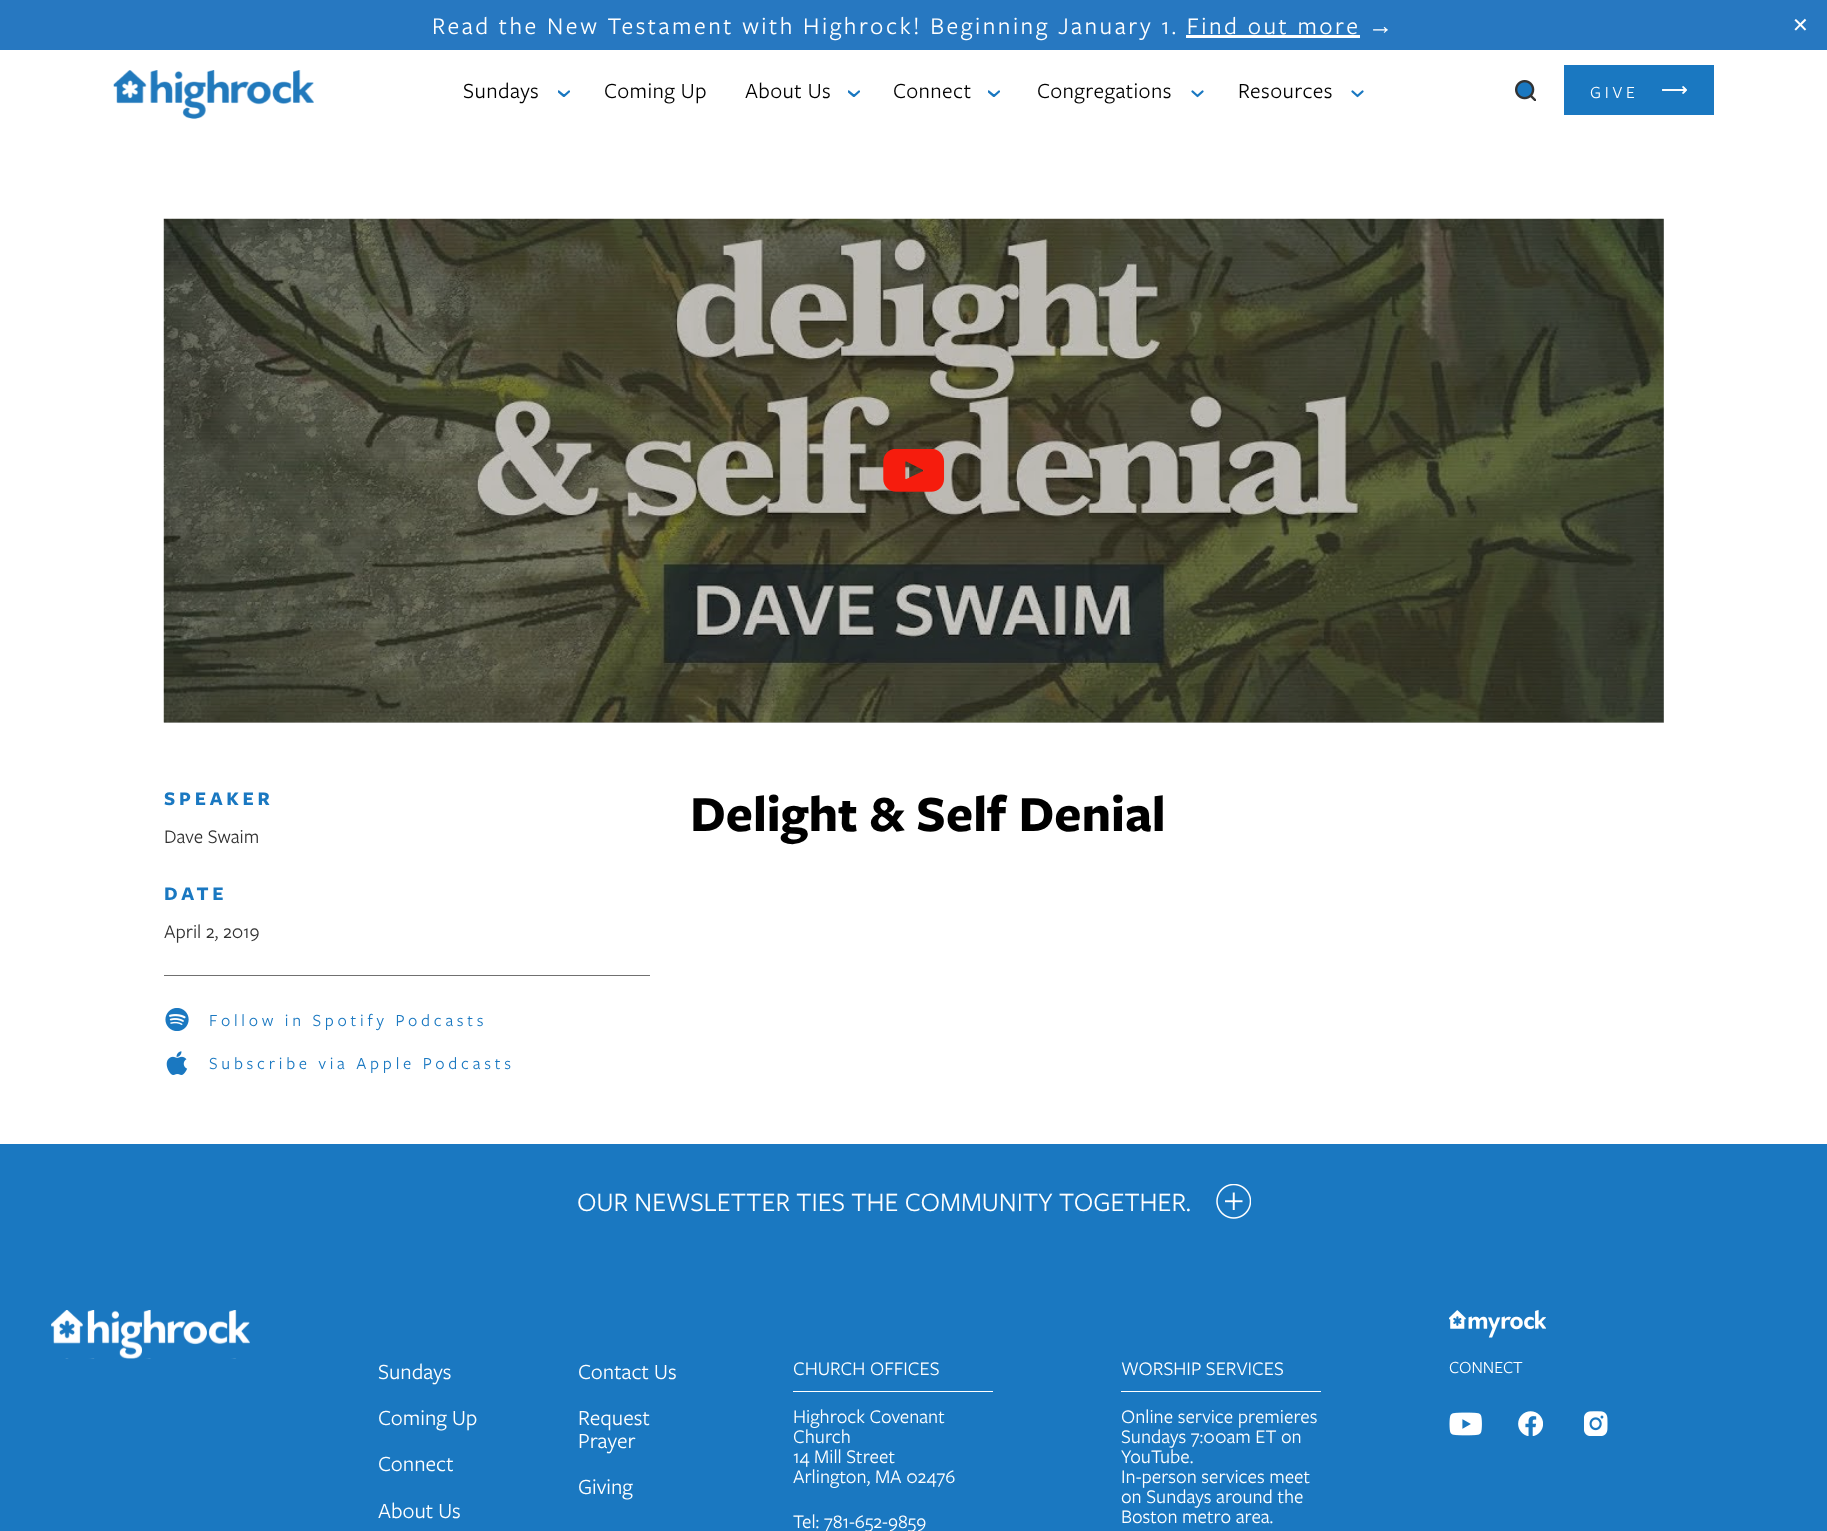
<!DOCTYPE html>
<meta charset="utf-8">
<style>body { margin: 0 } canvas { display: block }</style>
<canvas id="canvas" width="1827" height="1531"></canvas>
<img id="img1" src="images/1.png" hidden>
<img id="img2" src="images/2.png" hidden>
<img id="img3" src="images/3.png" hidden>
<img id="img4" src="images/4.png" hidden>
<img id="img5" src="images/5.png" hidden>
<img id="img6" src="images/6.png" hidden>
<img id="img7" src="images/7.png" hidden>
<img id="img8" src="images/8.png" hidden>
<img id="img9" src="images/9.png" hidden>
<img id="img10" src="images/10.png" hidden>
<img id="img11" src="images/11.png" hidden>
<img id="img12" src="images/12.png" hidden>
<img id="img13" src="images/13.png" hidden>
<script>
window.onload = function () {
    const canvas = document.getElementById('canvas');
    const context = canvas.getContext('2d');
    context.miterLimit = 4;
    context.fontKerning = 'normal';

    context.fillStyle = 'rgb(255, 255, 255)';
    context.fillRect(0, 0, 1827, 1531);
    context.fillStyle = 'rgb(204, 204, 204)';
    context.fillRect(164, 219, 1500, 504);
    context.fillStyle = 'rgb(39, 120, 193)';
    context.fillRect(0, 0, 1827, 50);
    context.fillStyle = 'rgb(255, 255, 255)';
    context.fillRect(1186, 35, 174, 3);
    context.drawImage(document.getElementById('img1'), 113, 70, 201, 49);
    context.save();
    context.beginPath();
    context.rect(558, 90, 12, 7);
    context.clip();
    context.beginPath();
    context.moveTo(558.5, 91.5);
    context.lineTo(564, 96);
    context.lineTo(569, 91.5);
    context.strokeStyle = 'rgb(26, 120, 193)';
    context.lineWidth = 2.3;
    context.lineCap = 'round';
    context.lineJoin = 'round';
    context.stroke();
    context.restore();
    context.save();
    context.beginPath();
    context.rect(848, 90, 12, 7);
    context.clip();
    context.beginPath();
    context.moveTo(848.5, 91.5);
    context.lineTo(854, 96);
    context.lineTo(859, 91.5);
    context.strokeStyle = 'rgb(26, 120, 193)';
    context.lineWidth = 2.3;
    context.lineCap = 'round';
    context.lineJoin = 'round';
    context.stroke();
    context.restore();
    context.save();
    context.beginPath();
    context.rect(988, 90, 12, 7);
    context.clip();
    context.beginPath();
    context.moveTo(988.5, 91.5);
    context.lineTo(994, 96);
    context.lineTo(999, 91.5);
    context.strokeStyle = 'rgb(26, 120, 193)';
    context.lineWidth = 2.3;
    context.lineCap = 'round';
    context.lineJoin = 'round';
    context.stroke();
    context.restore();
    context.beginPath();
    context.moveTo(1192.5, 91.5);
    context.lineTo(1197.5, 96);
    context.lineTo(1202.5, 91.5);
    context.strokeStyle = 'rgb(26, 120, 193)';
    context.lineWidth = 2.3;
    context.lineCap = 'round';
    context.lineJoin = 'round';
    context.stroke();
    context.beginPath();
    context.moveTo(1352.5, 91.5);
    context.lineTo(1357.5, 96);
    context.lineTo(1362.5, 91.5);
    context.stroke();
    context.drawImage(document.getElementById('img2'), 1515, 80, 21, 21);
    context.fillStyle = 'rgb(26, 120, 193)';
    context.fillRect(1564, 65, 150, 50);
    context.drawImage(document.getElementById('img3'), 1662, 86, 25, 8);
    context.drawImage(document.getElementById('img4'), 163, 218, 1501, 505);
    context.drawImage(document.getElementById('img5'), 883, 449, 62, 43);
    context.fillStyle = 'rgb(112, 112, 112)';
    context.fillRect(164, 975, 486, 1);
    context.drawImage(document.getElementById('img6'), 165, 1008, 24, 23);
    context.drawImage(document.getElementById('img7'), 166, 1051, 22, 24);
    context.fillStyle = 'rgb(26, 120, 193)';
    context.fillRect(0, 1144, 1827, 387);
    context.drawImage(document.getElementById('img8'), 1216, 1184, 35, 35);
    context.drawImage(document.getElementById('img9'), 51, 1310, 199, 49);
    context.fillStyle = 'rgb(255, 255, 255)';
    context.fillRect(793, 1391, 200, 1);
    context.fillRect(1121, 1391, 200, 1);
    context.drawImage(document.getElementById('img10'), 1449, 1310, 97, 28);
    context.drawImage(document.getElementById('img11'), 1449, 1412, 33, 24);
    context.drawImage(document.getElementById('img12'), 1518, 1411, 25, 25);
    context.drawImage(document.getElementById('img13'), 1584, 1411, 24, 25);
    context.letterSpacing = '2.5px';
    context.font = '25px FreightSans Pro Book';
    context.fillText('Read the New Testament with Highrock! Beginning January 1. Find out more', 432, 34);
    context.font = '25px Liberation Sans';
    context.fillText('→', 1368, 34);
    context.letterSpacing = '0px';
    context.font = '20px DejaVu Sans';
    context.fillText('✕', 1792, 32);
    context.letterSpacing = '0.4px';
    context.font = '22.5px FreightSans Pro Book';
    context.fillStyle = 'rgb(0, 0, 0)';
    context.fillText('Sundays', 463, 98);
    context.fillText('Coming Up', 604, 98);
    context.fillText('About Us', 745, 98);
    context.fillText('Connect', 893, 98);
    context.fillText('Congregations', 1037, 98);
    context.fillText('Resources', 1238, 98);
    context.letterSpacing = '3.75px';
    context.font = '17.5px FreightSans Pro Book';
    context.fillStyle = 'rgb(255, 255, 255)';
    context.fillText('GIVE', 1590, 98);
    context.font = 'bold 20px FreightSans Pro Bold';
    context.fillStyle = 'rgb(26, 120, 193)';
    context.fillText('SPEAKER', 164, 805);
    context.letterSpacing = '0px';
    context.font = '20px FreightSans Pro Book';
    context.fillStyle = 'rgb(51, 51, 51)';
    context.fillText('Dave Swaim', 164, 843);
    context.letterSpacing = '3.75px';
    context.font = 'bold 20px FreightSans Pro Bold';
    context.fillStyle = 'rgb(26, 120, 193)';
    context.fillText('DATE', 164, 900);
    context.letterSpacing = '0px';
    context.font = '20px FreightSans Pro Book';
    context.fillStyle = 'rgb(51, 51, 51)';
    context.fillText('April 2, 2019', 164, 938);
    context.letterSpacing = '3.75px';
    context.font = '17.5px FreightSans Pro Book';
    context.fillStyle = 'rgb(26, 120, 193)';
    context.fillText('Follow in Spotify Podcasts', 209, 1026);
    context.fillText('Subscribe via Apple Podcasts', 209, 1069);
    context.letterSpacing = '0px';
    context.font = 'bold 52.5px FreightSans Pro Bold';
    context.fillStyle = 'rgb(0, 0, 0)';
    context.fillText('Delight & Self Denial', 690, 831);
    context.font = '27.5px FreightSans Pro Book';
    context.fillStyle = 'rgb(255, 255, 255)';
    context.fillText('OUR NEWSLETTER TIES THE COMMUNITY TOGETHER.', 577, 1211);
    context.font = '22.5px FreightSans Pro Book';
    context.fillText('Sundays', 378, 1379);
    context.fillText('Coming Up', 378, 1425);
    context.fillText('Connect', 378, 1471);
    context.fillText('About Us', 378, 1518);
    context.fillText('Contact Us', 578, 1379);
    context.fillText('Request', 578, 1425);
    context.fillText('Prayer', 578, 1448);
    context.fillText('Giving', 578, 1494);
    context.font = '20px FreightSans Pro Book';
    context.fillText('CHURCH OFFICES', 793, 1375);
    context.fillText('Highrock Covenant', 793, 1423);
    context.fillText('Church', 793, 1443);
    context.fillText('14 Mill Street', 793, 1463);
    context.fillText('Arlington, MA 02476', 793, 1483);
    context.fillText('Tel: 781-652-9859', 793, 1528);
    context.fillText('WORSHIP SERVICES', 1121, 1375);
    context.fillText('Online service premieres', 1121, 1423);
    context.fillText('Sundays 7:00am ET on', 1121, 1443);
    context.fillText('YouTube.', 1121, 1463);
    context.fillText('In-person services meet', 1121, 1483);
    context.fillText('on Sundays around the', 1121, 1503);
    context.fillText('Boston metro area.', 1121, 1523);
    context.font = '17.5px FreightSans Pro Book';
    context.fillText('CONNECT', 1449, 1373);
};
</script>
